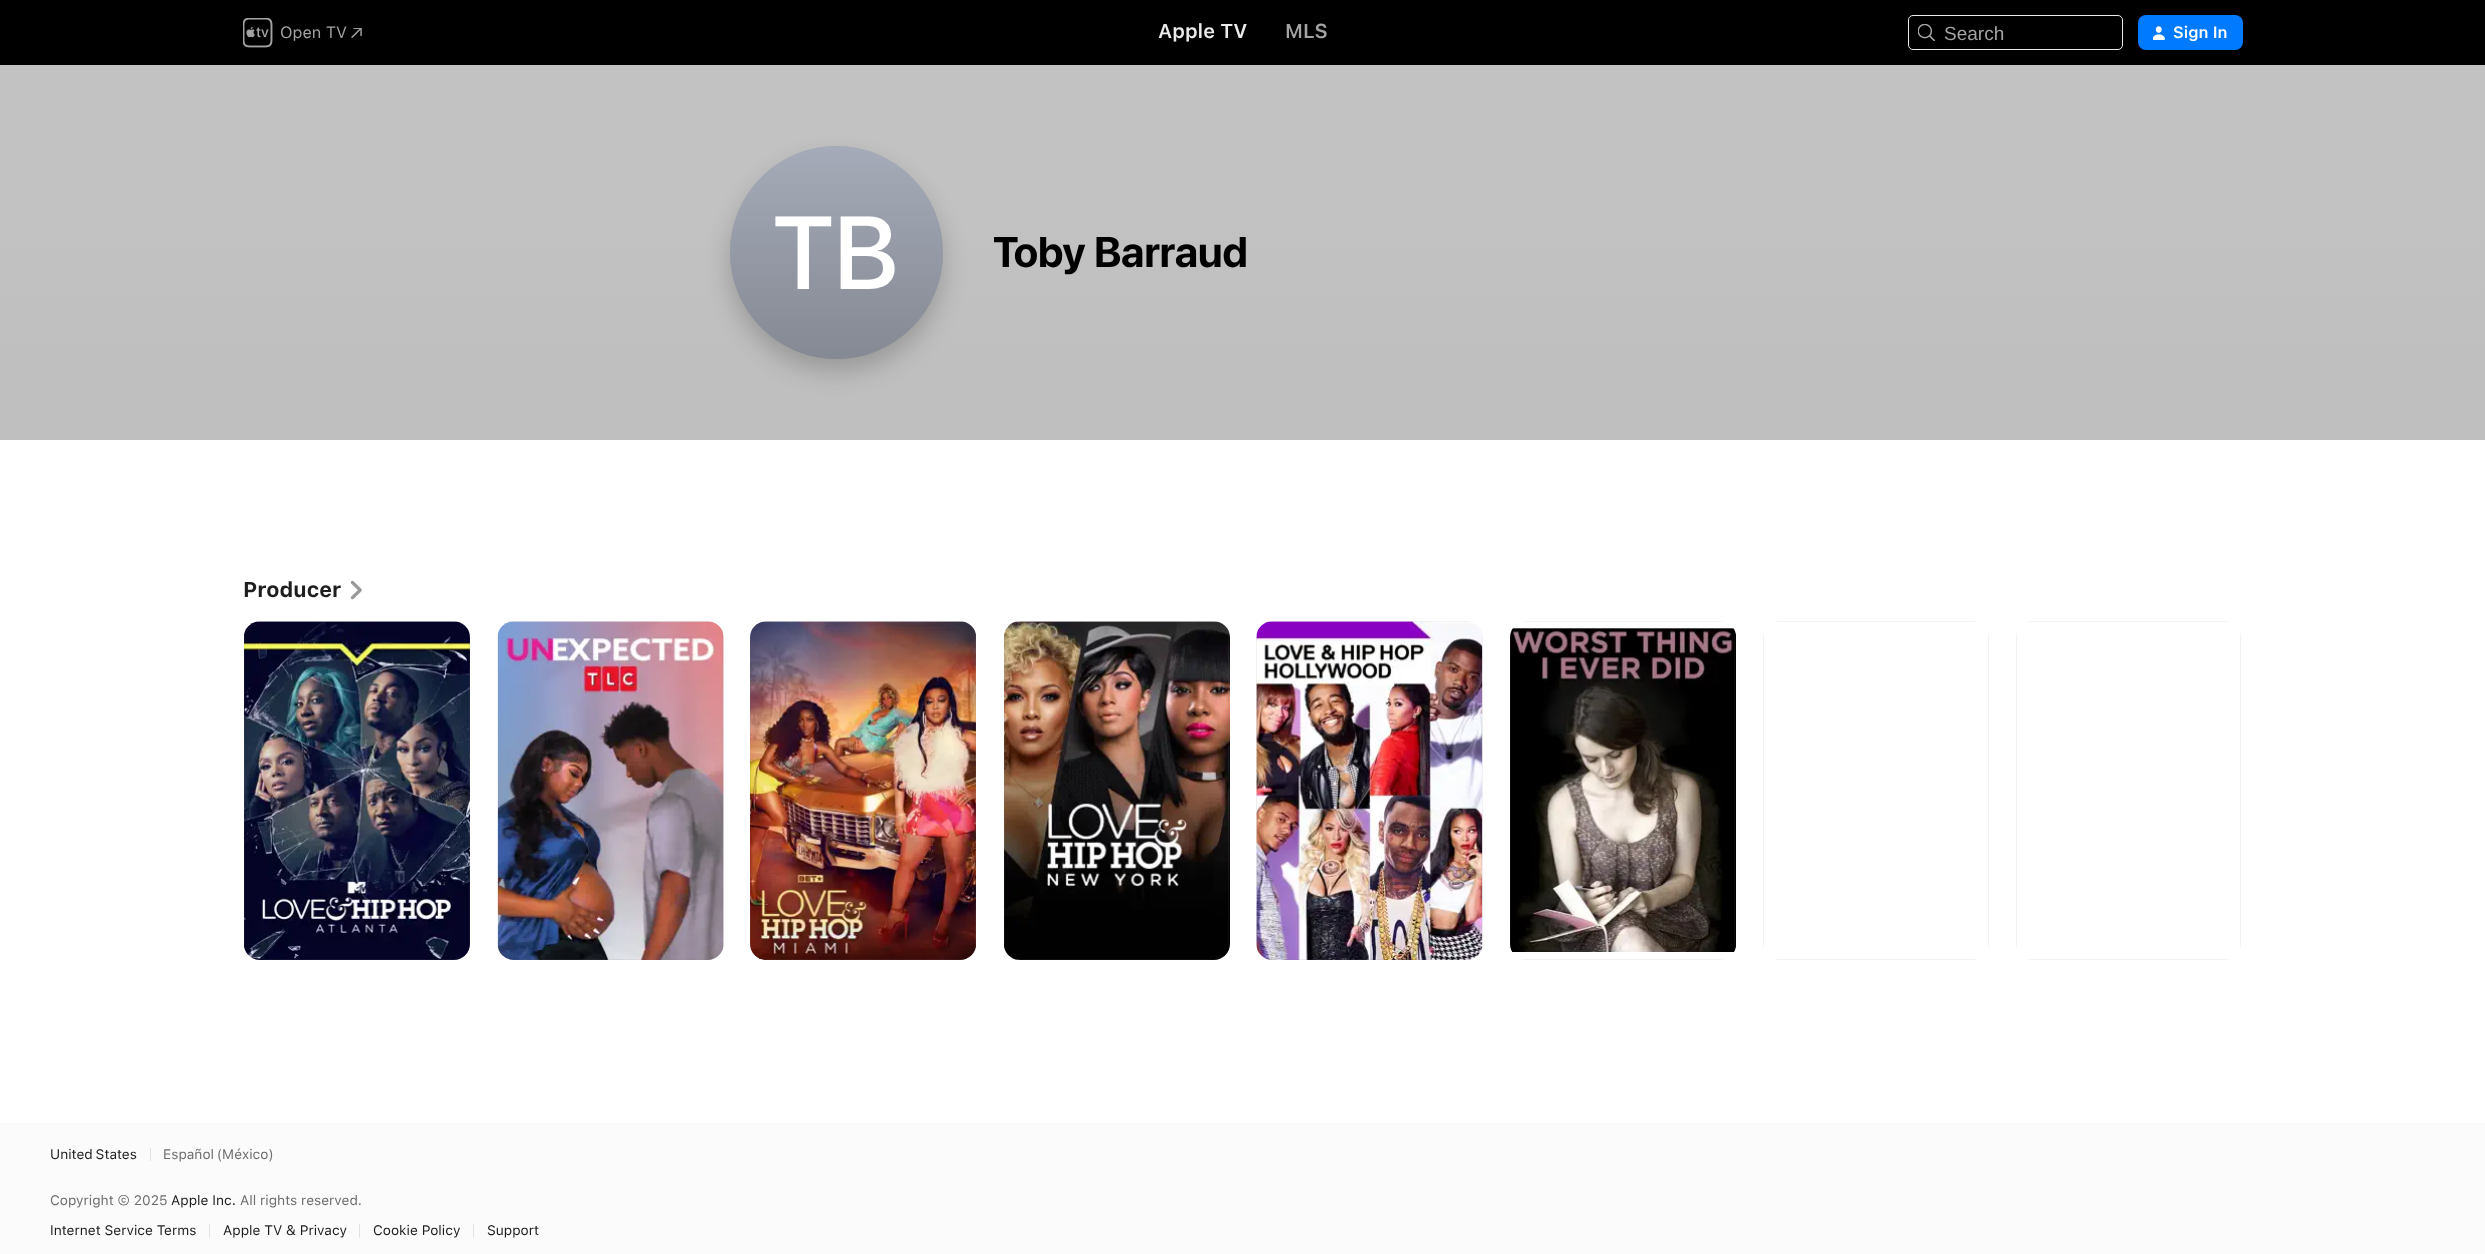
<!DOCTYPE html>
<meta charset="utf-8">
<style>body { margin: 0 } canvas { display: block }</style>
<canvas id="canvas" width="2485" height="1254"></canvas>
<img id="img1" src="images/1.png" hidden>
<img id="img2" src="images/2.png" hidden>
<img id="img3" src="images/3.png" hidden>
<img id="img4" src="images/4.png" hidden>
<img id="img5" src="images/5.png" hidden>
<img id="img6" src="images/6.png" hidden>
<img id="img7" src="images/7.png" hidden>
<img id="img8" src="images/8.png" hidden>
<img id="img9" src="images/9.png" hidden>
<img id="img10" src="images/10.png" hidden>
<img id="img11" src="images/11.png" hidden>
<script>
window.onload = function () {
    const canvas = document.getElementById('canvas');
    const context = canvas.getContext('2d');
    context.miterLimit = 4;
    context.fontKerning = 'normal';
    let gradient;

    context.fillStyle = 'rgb(255, 255, 255)';
    context.fillRect(0, 0, 2485, 1254);
    context.fillStyle = 'rgb(0, 0, 0)';
    context.fillRect(0, 0, 2485, 65);
    context.drawImage(document.getElementById('img1'), 243, 18, 30, 30);
    context.drawImage(document.getElementById('img2'), 351, 28, 11, 10);
    context.beginPath();
    context.roundRect(1908.5, 15.5, 214, 34, 4.5);
    context.strokeStyle = 'rgb(235, 235, 235)';
    context.stroke();
    context.drawImage(document.getElementById('img3'), 1918, 24, 17, 17);
    context.fillStyle = 'rgb(0, 122, 255)';
    context.beginPath();
    context.roundRect(2138, 15, 105, 35, 8);
    context.fill();
    context.drawImage(document.getElementById('img4'), 2153, 26, 12, 14);
    context.fillStyle = 'rgb(194, 194, 194)';
    context.fillRect(0, 65, 2485, 138);
    gradient = context.createLinearGradient(1243, 202, 1243, 440);
    gradient.addColorStop(0, 'rgb(194, 194, 194)');
    gradient.addColorStop(0.7, 'rgb(191, 191, 191)');
    context.fillStyle = gradient;
    context.fillRect(0, 203, 2485, 237);
    context.fillStyle = 'rgba(0, 0, 0, 0.2)';
    context.filter = 'blur(12.5px)';
    context.beginPath();
    context.roundRect(730, 159, 213, 212, 106);
    context.fill();
    context.filter = 'none';
    context.beginPath();
    context.arc(836.5, 252.5, 106, 0, 2 * Math.PI);
    context.strokeStyle = 'rgba(0, 0, 0, 0.08)';
    context.stroke();
    gradient = context.createLinearGradient(836, 146, 836, 359);
    gradient.addColorStop(0, 'rgb(165, 171, 184)');
    gradient.addColorStop(1, 'rgb(132, 137, 147)');
    context.fillStyle = gradient;
    context.beginPath();
    context.arc(836.5, 252.5, 106.5, 0, 2 * Math.PI);
    context.fill();
    context.drawImage(document.getElementById('img5'), 350, 580, 12, 20);
    context.drawImage(document.getElementById('img6'), 244, 621, 226, 339);
    context.fillStyle = 'rgba(128, 128, 128, 0.1)';
    context.beginPath();
    context.moveTo(244, 637);
    context.lineTo(244, 944);
    context.lineTo(245, 950);
    context.lineTo(245, 631);
    context.closePath();
    context.moveTo(260, 621);
    context.lineTo(254, 622);
    context.lineTo(460, 622);
    context.lineTo(454, 621);
    context.closePath();
    context.moveTo(470, 637);
    context.lineTo(469, 631);
    context.lineTo(469, 950);
    context.lineTo(470, 944);
    context.closePath();
    context.moveTo(454, 960);
    context.lineTo(460, 959);
    context.lineTo(254, 959);
    context.lineTo(260, 960);
    context.closePath();
    context.fill('evenodd');
    context.drawImage(document.getElementById('img7'), 497, 621, 227, 339);
    context.beginPath();
    context.moveTo(498, 637);
    context.lineTo(498, 944);
    context.lineTo(499, 950);
    context.lineTo(499, 631);
    context.closePath();
    context.moveTo(514, 621);
    context.lineTo(508, 622);
    context.lineTo(713, 622);
    context.lineTo(707, 621);
    context.closePath();
    context.moveTo(723, 637);
    context.lineTo(722, 631);
    context.lineTo(722, 950);
    context.lineTo(723, 944);
    context.closePath();
    context.moveTo(707, 960);
    context.lineTo(713, 959);
    context.lineTo(508, 959);
    context.lineTo(514, 960);
    context.closePath();
    context.fill('evenodd');
    context.drawImage(document.getElementById('img8'), 750, 621, 226, 339);
    context.beginPath();
    context.moveTo(750, 637);
    context.lineTo(750, 944);
    context.lineTo(751, 950);
    context.lineTo(751, 631);
    context.closePath();
    context.moveTo(766, 621);
    context.lineTo(760, 622);
    context.lineTo(966, 622);
    context.lineTo(960, 621);
    context.closePath();
    context.moveTo(976, 637);
    context.lineTo(975, 631);
    context.lineTo(975, 950);
    context.lineTo(976, 944);
    context.closePath();
    context.moveTo(960, 960);
    context.lineTo(966, 959);
    context.lineTo(760, 959);
    context.lineTo(766, 960);
    context.closePath();
    context.fill('evenodd');
    context.drawImage(document.getElementById('img9'), 1004, 621, 226, 339);
    context.beginPath();
    context.moveTo(1004, 637);
    context.lineTo(1004, 944);
    context.lineTo(1005, 950);
    context.lineTo(1005, 631);
    context.closePath();
    context.moveTo(1020, 621);
    context.lineTo(1014, 622);
    context.lineTo(1219, 622);
    context.lineTo(1213, 621);
    context.closePath();
    context.moveTo(1229, 637);
    context.lineTo(1228, 631);
    context.lineTo(1228, 950);
    context.lineTo(1229, 944);
    context.closePath();
    context.moveTo(1213, 960);
    context.lineTo(1219, 959);
    context.lineTo(1014, 959);
    context.lineTo(1020, 960);
    context.closePath();
    context.fill('evenodd');
    context.drawImage(document.getElementById('img10'), 1256, 621, 227, 339);
    context.beginPath();
    context.moveTo(1256, 637);
    context.lineTo(1256, 944);
    context.lineTo(1257, 950);
    context.lineTo(1257, 631);
    context.closePath();
    context.moveTo(1272, 621);
    context.lineTo(1266, 622);
    context.lineTo(1473, 622);
    context.lineTo(1467, 621);
    context.closePath();
    context.moveTo(1483, 637);
    context.lineTo(1482, 631);
    context.lineTo(1482, 950);
    context.lineTo(1483, 944);
    context.closePath();
    context.moveTo(1467, 960);
    context.lineTo(1473, 959);
    context.lineTo(1266, 959);
    context.lineTo(1272, 960);
    context.closePath();
    context.fill('evenodd');
    context.drawImage(document.getElementById('img11'), 1510, 628, 226, 324);
    context.beginPath();
    context.moveTo(1510, 637);
    context.lineTo(1510, 944);
    context.lineTo(1511, 950);
    context.lineTo(1511, 631);
    context.closePath();
    context.moveTo(1526, 621);
    context.lineTo(1520, 622);
    context.lineTo(1725, 622);
    context.lineTo(1719, 621);
    context.closePath();
    context.moveTo(1735, 637);
    context.lineTo(1734, 631);
    context.lineTo(1734, 950);
    context.lineTo(1735, 944);
    context.closePath();
    context.moveTo(1719, 960);
    context.lineTo(1725, 959);
    context.lineTo(1520, 959);
    context.lineTo(1526, 960);
    context.closePath();
    context.fill('evenodd');
    context.fillStyle = 'rgb(242, 242, 242)';
    context.beginPath();
    context.moveTo(1763, 637);
    context.lineTo(1763, 944);
    context.lineTo(1764, 950);
    context.lineTo(1764, 631);
    context.closePath();
    context.moveTo(1779, 621);
    context.lineTo(1773, 622);
    context.lineTo(1979, 622);
    context.lineTo(1973, 621);
    context.closePath();
    context.moveTo(1989, 637);
    context.lineTo(1988, 631);
    context.lineTo(1988, 950);
    context.lineTo(1989, 944);
    context.closePath();
    context.moveTo(1973, 960);
    context.lineTo(1979, 959);
    context.lineTo(1773, 959);
    context.lineTo(1779, 960);
    context.closePath();
    context.fill('evenodd');
    context.beginPath();
    context.moveTo(2016, 637);
    context.lineTo(2016, 944);
    context.lineTo(2017, 950);
    context.lineTo(2017, 631);
    context.closePath();
    context.moveTo(2032, 621);
    context.lineTo(2026, 622);
    context.lineTo(2231, 622);
    context.lineTo(2225, 621);
    context.closePath();
    context.moveTo(2241, 637);
    context.lineTo(2240, 631);
    context.lineTo(2240, 950);
    context.lineTo(2241, 944);
    context.closePath();
    context.moveTo(2225, 960);
    context.lineTo(2231, 959);
    context.lineTo(2026, 959);
    context.lineTo(2032, 960);
    context.closePath();
    context.fill('evenodd');
    context.fillStyle = 'rgb(251, 251, 251)';
    context.fillRect(0, 1123, 2485, 131);
    context.fillStyle = 'rgb(226, 226, 226)';
    context.fillRect(150, 1148, 1, 13);
    context.fillRect(209, 1224, 1, 14);
    context.fillRect(359, 1224, 1, 14);
    context.fillRect(473, 1224, 1, 14);
    context.font = '16.25px SF';
    context.fillStyle = 'rgb(163, 163, 163)';
    context.fillText('Open TV', 280, 38);
    context.font = '600 20px SF';
    context.fillStyle = 'rgb(235, 235, 235)';
    context.fillText('Apple TV', 1158, 38);
    context.fillStyle = 'rgb(163, 163, 163)';
    context.fillText('MLS', 1285, 38);
    context.font = '19px Liberation Sans';
    context.fillText('Search', 1944, 40);
    context.font = '600 16.25px SF';
    context.fillStyle = 'rgb(255, 255, 255)';
    context.fillText('Sign In', 2173, 38);
    context.letterSpacing = '0.5px';
    context.font = '500 103px SF';
    context.fillText('T‌B', 773, 289);
    context.letterSpacing = '0px';
    context.font = 'bold 42.5px "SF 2"';
    context.fillStyle = 'rgb(0, 0, 0)';
    context.fillText('Toby Barraud', 993, 267);
    context.font = 'bold 21.25px SF';
    context.fillStyle = 'rgb(30, 30, 30)';
    context.fillText('Producer', 243, 597);
    context.wordSpacing = '-1px';
    context.font = '13.75px SF';
    context.fillText('United States', 50, 1159);
    context.fillStyle = 'rgb(110, 110, 110)';
    context.fillText('Español (México)', 163, 1159);
    context.wordSpacing = '0px';
    context.fillText('Copyright © 2025', 50, 1205);
    context.fillStyle = 'rgb(30, 30, 30)';
    context.fillText('Apple Inc.', 171, 1205);
    context.fillStyle = 'rgb(110, 110, 110)';
    context.fillText('All rights reserved.', 240, 1205);
    context.fillStyle = 'rgb(30, 30, 30)';
    context.fillText('Internet Service Terms', 50, 1235);
    context.fillText('Apple TV & Privacy', 223, 1235);
    context.fillText('Cookie Policy', 373, 1235);
    context.fillText('Support', 487, 1235);
};
</script>
